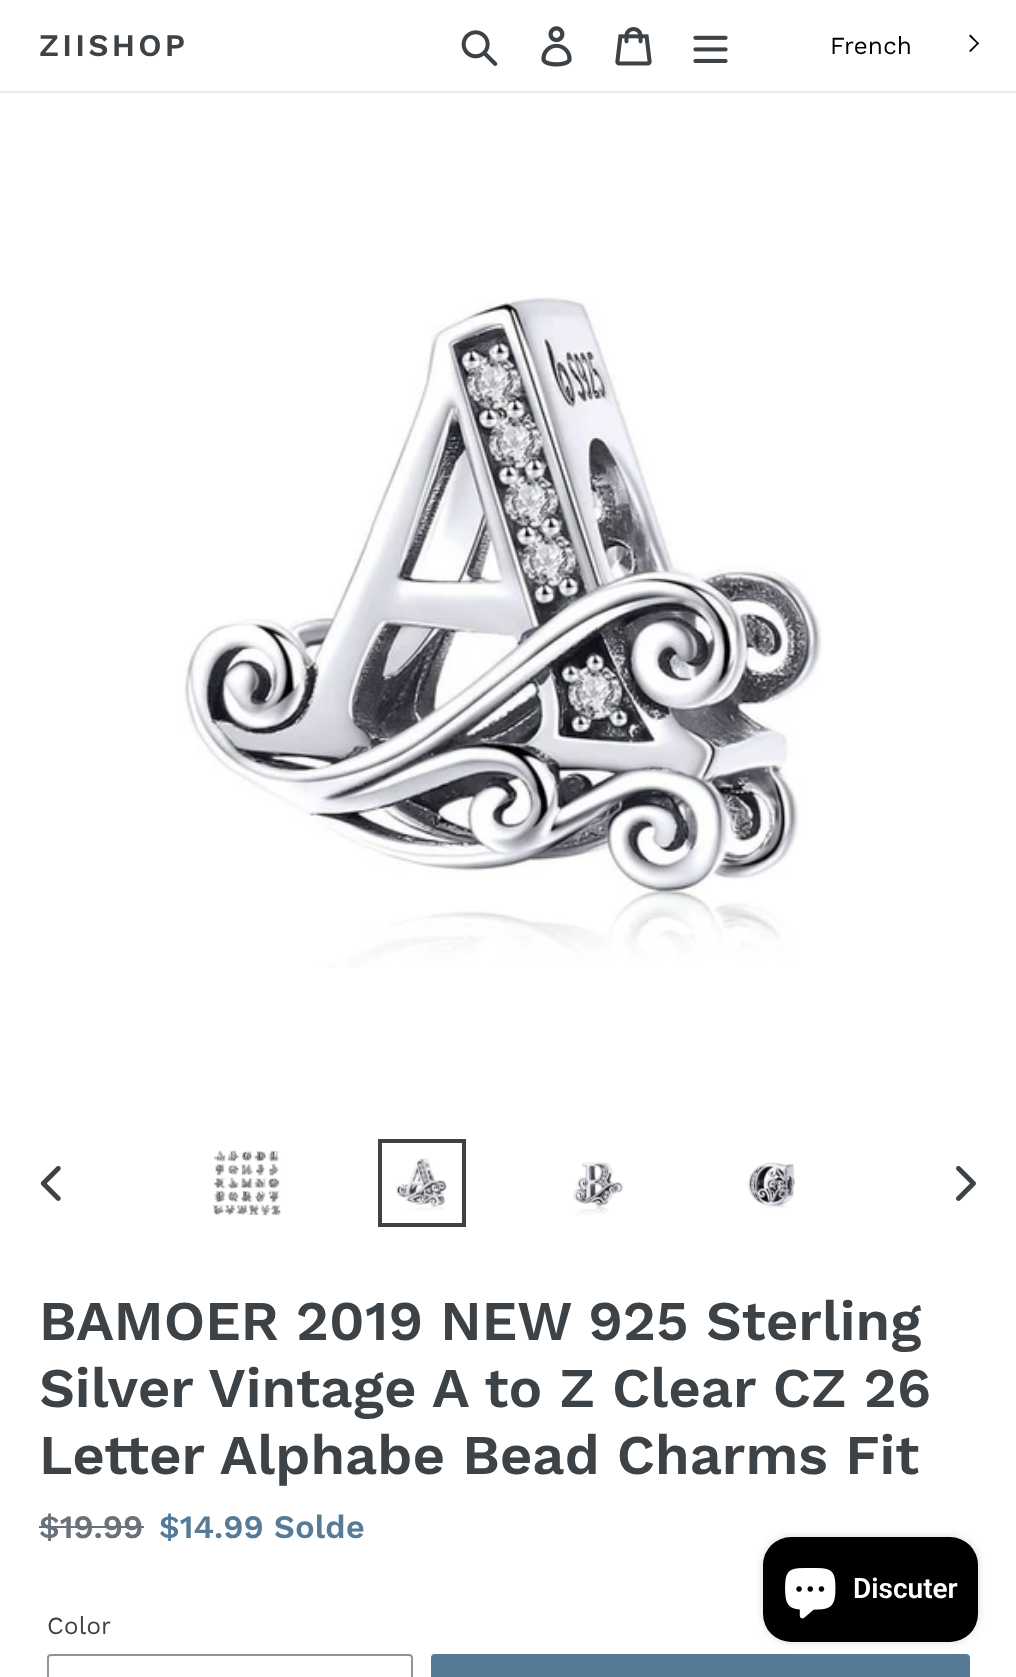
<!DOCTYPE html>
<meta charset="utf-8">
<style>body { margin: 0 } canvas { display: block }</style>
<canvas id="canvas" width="1016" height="1677"></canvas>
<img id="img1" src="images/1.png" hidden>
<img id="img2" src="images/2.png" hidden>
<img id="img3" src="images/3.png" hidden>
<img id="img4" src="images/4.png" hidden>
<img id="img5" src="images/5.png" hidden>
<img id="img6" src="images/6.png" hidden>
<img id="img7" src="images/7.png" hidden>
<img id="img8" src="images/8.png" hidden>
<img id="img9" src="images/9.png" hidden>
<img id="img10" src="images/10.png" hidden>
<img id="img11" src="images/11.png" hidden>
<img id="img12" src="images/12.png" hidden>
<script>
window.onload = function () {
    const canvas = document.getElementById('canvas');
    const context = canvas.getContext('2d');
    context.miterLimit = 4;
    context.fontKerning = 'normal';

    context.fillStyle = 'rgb(255, 255, 255)';
    context.fillRect(0, 0, 1016, 1677);
    context.fillStyle = 'rgb(232, 233, 235)';
    context.fillRect(0, 91, 1016, 2);
    context.drawImage(document.getElementById('img1'), 461, 30, 37, 36);
    context.drawImage(document.getElementById('img2'), 541, 26, 31, 41);
    context.drawImage(document.getElementById('img3'), 615, 27, 37, 39);
    context.drawImage(document.getElementById('img4'), 693, 35, 35, 28);
    context.fillStyle = 'rgb(0, 0, 0)';
    context.beginPath();
    context.moveTo(970.5, 34.5);
    context.lineTo(979, 43.5);
    context.lineTo(978, 44.5);
    context.lineTo(969, 36);
    context.closePath();
    context.fill();
    context.beginPath();
    context.moveTo(978, 42);
    context.lineTo(979, 43.5);
    context.lineTo(970.5, 52);
    context.lineTo(969, 51);
    context.closePath();
    context.fill();
    context.drawImage(document.getElementById('img5'), 183, 296, 640, 672);
    context.drawImage(document.getElementById('img6'), 40, 1166, 21, 35);
    context.drawImage(document.getElementById('img7'), 213, 1150, 68, 66);
    context.strokeStyle = 'rgb(61, 66, 70)';
    context.lineWidth = 4;
    context.strokeRect(380, 1141, 84, 84);
    context.drawImage(document.getElementById('img8'), 395, 1158, 52, 53);
    context.drawImage(document.getElementById('img9'), 573, 1162, 51, 53);
    context.drawImage(document.getElementById('img10'), 748, 1162, 48, 47);
    context.drawImage(document.getElementById('img11'), 956, 1166, 20, 35);
    context.fillStyle = 'rgb(105, 114, 123)';
    context.fillRect(39, 1526, 105, 2);
    context.beginPath();
    context.roundRect(48, 1655, 364, 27, 3);
    context.strokeStyle = 'rgb(148, 148, 148)';
    context.lineWidth = 2;
    context.stroke();
    context.fillStyle = 'rgb(85, 123, 151)';
    context.beginPath();
    context.roundRect(431, 1654, 539, 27, 4);
    context.fill();
    context.fillStyle = 'rgba(0, 0, 0, 0.15)';
    context.filter = 'blur(4.5px)';
    context.beginPath();
    context.roundRect(763, 1537, 215, 105, 28);
    context.fill();
    context.filter = 'none';
    context.fillStyle = 'rgb(0, 0, 0)';
    context.beginPath();
    context.roundRect(763, 1537, 215, 105, 28);
    context.fill();
    context.drawImage(document.getElementById('img12'), 785, 1568, 51, 51);
    context.letterSpacing = '3.25px';
    context.font = '600 31.5px Work Sans';
    context.fillStyle = 'rgb(61, 66, 70)';
    context.fillText('ZIISHOP', 39, 56);
    context.letterSpacing = '0px';
    context.font = '24.5px Work Sans';
    context.fillStyle = 'rgb(0, 0, 0)';
    context.fillText('French', 830, 54);
    context.font = '600 56px Work Sans';
    context.fillStyle = 'rgb(61, 66, 70)';
    context.fillText('BAMOER 2019 NEW 925 Sterling', 39, 1340);
    context.fillText('Silver Vintage A to Z Clear CZ 26', 39, 1407);
    context.fillText('Letter Alphabe Bead Charms Fit', 39, 1474);
    context.font = '600 32.75px Work Sans';
    context.fillStyle = 'rgb(105, 114, 123)';
    context.fillText('$19.99', 39, 1538);
    context.fillStyle = 'rgb(85, 123, 151)';
    context.fillText('$14.99 Solde', 159, 1538);
    context.font = '24.5px Work Sans';
    context.fillStyle = 'rgb(61, 66, 70)';
    context.fillText('Color', 47, 1634);
    context.font = '600 28px Roboto';
    context.fillStyle = 'rgb(255, 255, 255)';
    context.fillText('Discuter', 853, 1598);
};
</script>
